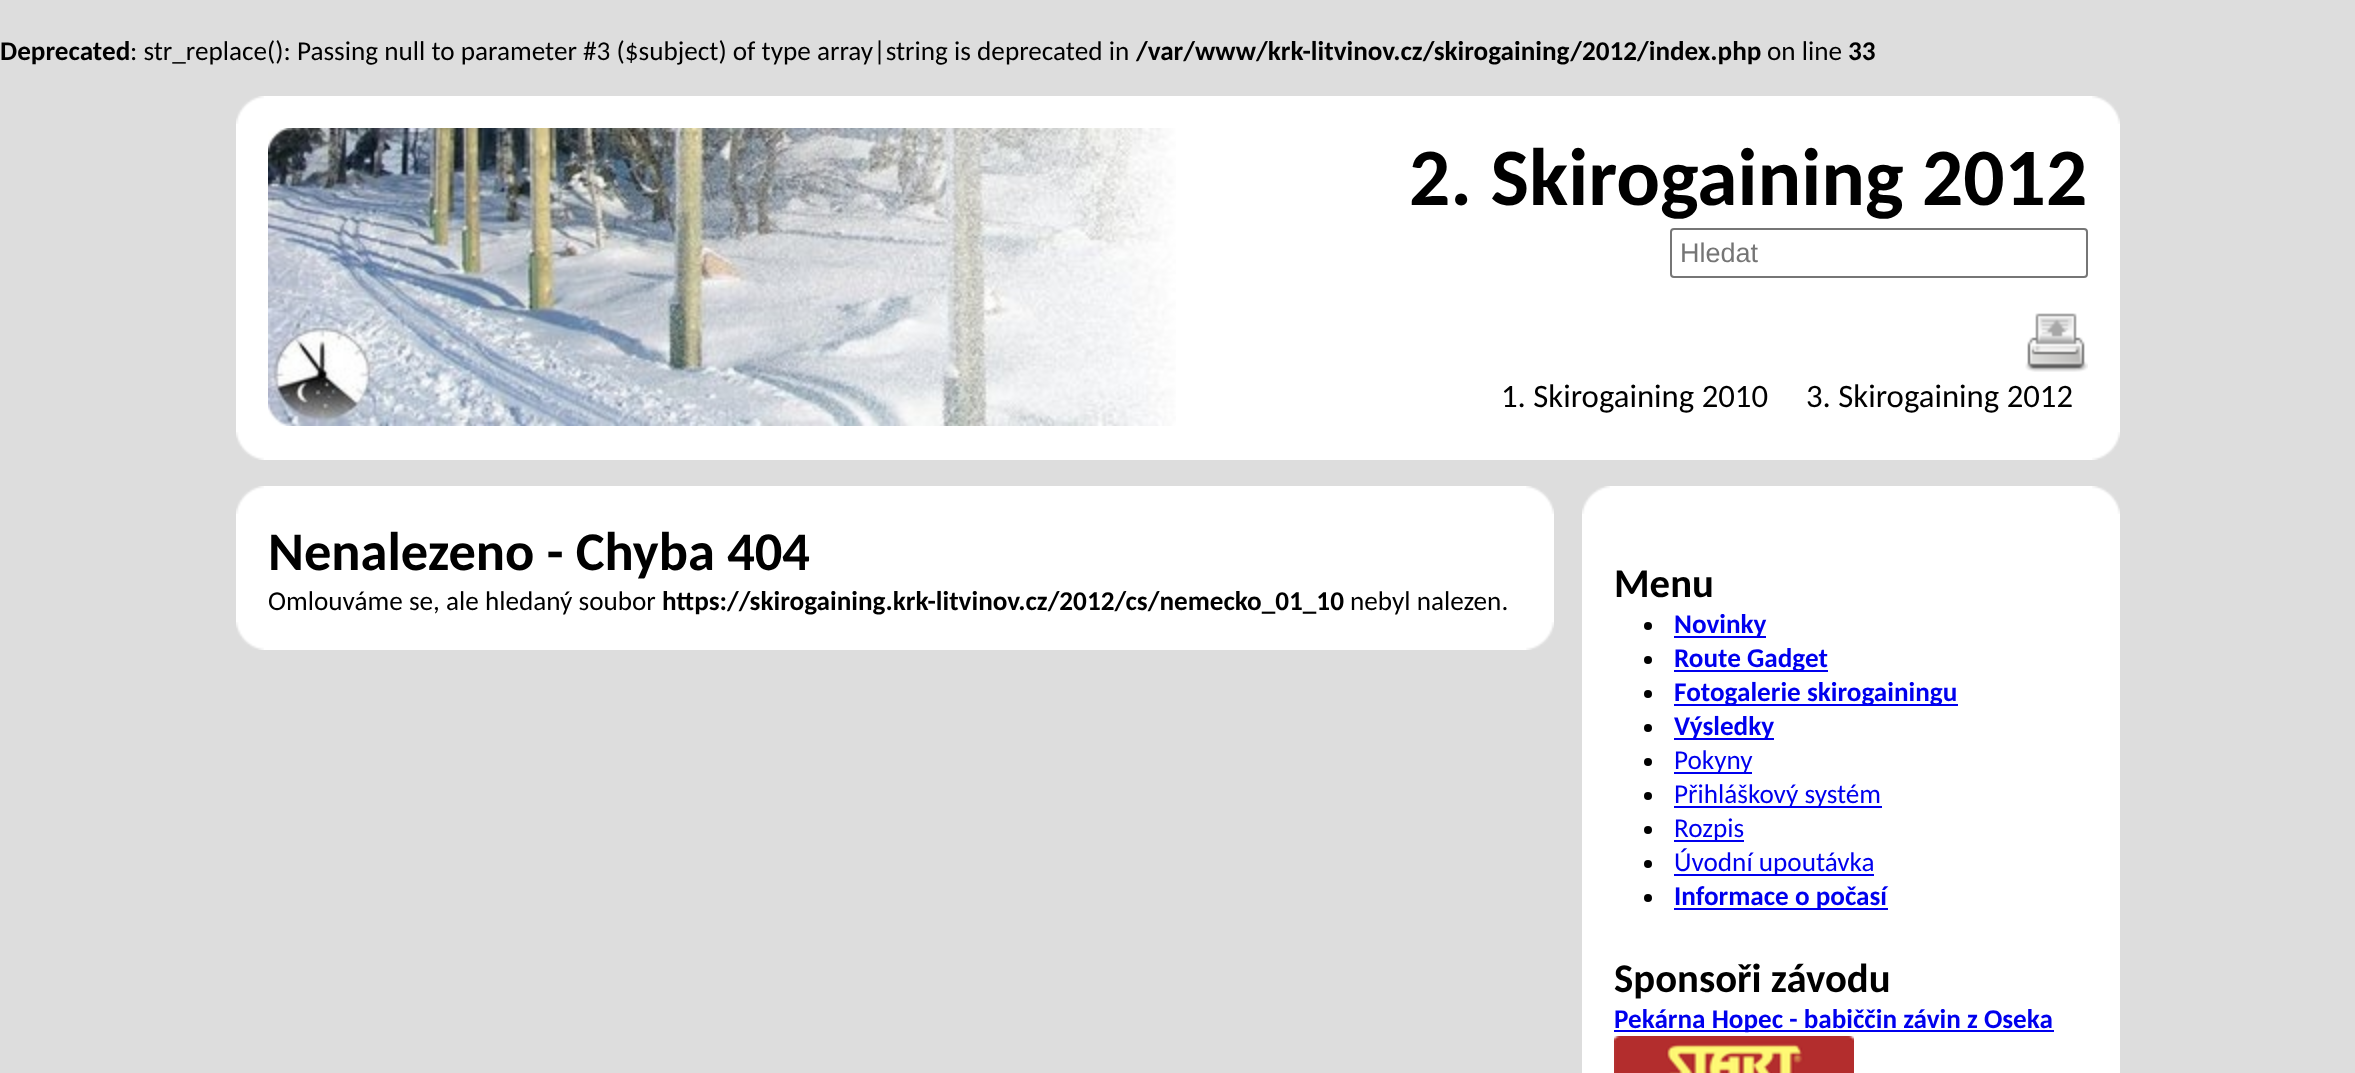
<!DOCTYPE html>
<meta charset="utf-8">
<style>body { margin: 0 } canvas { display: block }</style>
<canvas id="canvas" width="2355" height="1073"></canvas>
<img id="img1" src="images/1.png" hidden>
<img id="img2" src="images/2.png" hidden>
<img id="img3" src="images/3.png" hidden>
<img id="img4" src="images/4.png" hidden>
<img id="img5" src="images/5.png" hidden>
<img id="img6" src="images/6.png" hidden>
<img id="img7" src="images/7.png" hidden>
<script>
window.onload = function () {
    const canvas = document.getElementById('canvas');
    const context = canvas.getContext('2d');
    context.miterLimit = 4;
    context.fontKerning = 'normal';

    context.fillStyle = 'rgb(221, 221, 221)';
    context.fillRect(0, 0, 2355, 1073);
    context.fillStyle = 'rgb(255, 255, 255)';
    context.fillRect(236, 96, 1884, 364);
    context.drawImage(document.getElementById('img1'), 268, 128, 908, 298);
    context.drawImage(document.getElementById('img2'), 236, 96, 28, 28);
    context.drawImage(document.getElementById('img3'), 2092, 96, 28, 28);
    context.beginPath();
    context.roundRect(1671, 229, 416, 48, 3);
    context.strokeStyle = 'rgb(118, 118, 118)';
    context.lineWidth = 2;
    context.stroke();
    context.drawImage(document.getElementById('img4'), 2025, 313, 63, 59);
    context.drawImage(document.getElementById('img5'), 236, 432, 28, 28);
    context.drawImage(document.getElementById('img6'), 2092, 432, 28, 28);
    context.fillRect(236, 486, 1318, 164);
    context.drawImage(document.getElementById('img2'), 236, 486, 28, 28);
    context.drawImage(document.getElementById('img3'), 1526, 486, 28, 28);
    context.drawImage(document.getElementById('img5'), 236, 622, 28, 28);
    context.drawImage(document.getElementById('img6'), 1526, 622, 28, 28);
    context.fillRect(1582, 486, 538, 587);
    context.drawImage(document.getElementById('img2'), 1582, 486, 28, 28);
    context.drawImage(document.getElementById('img3'), 2092, 486, 28, 28);
    context.fillStyle = 'rgb(0, 0, 0)';
    context.beginPath();
    context.arc(1648, 626, 4, 0, 2 * Math.PI);
    context.fill();
    context.fillStyle = 'rgb(0, 0, 238)';
    context.fillRect(1674, 636, 92, 2);
    context.fillStyle = 'rgb(0, 0, 0)';
    context.beginPath();
    context.arc(1648, 660, 4, 0, 2 * Math.PI);
    context.fill();
    context.fillStyle = 'rgb(0, 0, 238)';
    context.fillRect(1674, 670, 154, 2);
    context.fillStyle = 'rgb(0, 0, 0)';
    context.beginPath();
    context.arc(1648, 694, 4, 0, 2 * Math.PI);
    context.fill();
    context.fillStyle = 'rgb(0, 0, 238)';
    context.fillRect(1674, 704, 284, 2);
    context.fillStyle = 'rgb(0, 0, 0)';
    context.beginPath();
    context.arc(1648, 728, 4, 0, 2 * Math.PI);
    context.fill();
    context.fillStyle = 'rgb(0, 0, 238)';
    context.fillRect(1674, 738, 100, 2);
    context.fillStyle = 'rgb(0, 0, 0)';
    context.beginPath();
    context.arc(1648, 762, 4, 0, 2 * Math.PI);
    context.fill();
    context.fillStyle = 'rgb(0, 0, 238)';
    context.fillRect(1674, 772, 78, 2);
    context.fillStyle = 'rgb(0, 0, 0)';
    context.beginPath();
    context.arc(1648, 796, 4, 0, 2 * Math.PI);
    context.fill();
    context.fillStyle = 'rgb(0, 0, 238)';
    context.fillRect(1674, 806, 208, 2);
    context.fillStyle = 'rgb(0, 0, 0)';
    context.beginPath();
    context.arc(1648, 830, 4, 0, 2 * Math.PI);
    context.fill();
    context.fillStyle = 'rgb(0, 0, 238)';
    context.fillRect(1674, 840, 70, 2);
    context.fillStyle = 'rgb(0, 0, 0)';
    context.beginPath();
    context.arc(1648, 864, 4, 0, 2 * Math.PI);
    context.fill();
    context.fillStyle = 'rgb(0, 0, 238)';
    context.fillRect(1674, 874, 200, 2);
    context.fillStyle = 'rgb(0, 0, 0)';
    context.beginPath();
    context.arc(1648, 898, 4, 0, 2 * Math.PI);
    context.fill();
    context.fillStyle = 'rgb(0, 0, 238)';
    context.fillRect(1674, 908, 214, 2);
    context.fillRect(1614, 1030, 440, 2);
    context.drawImage(document.getElementById('img7'), 1614, 1036, 240, 37);
    context.font = 'bold 27.2px Carlito';
    context.fillStyle = 'rgb(0, 0, 0)';
    context.fillText('Deprecated', 0, 60);
    context.font = '27.2px Carlito';
    context.fillText(': str_replace(): Passing null to parameter #3 ($subject) of type array|string is deprecated in', 130, 60);
    context.font = 'bold 27.2px Carlito';
    context.fillText('/var/www/krk-litvinov.cz/skirogaining/2012/index.php', 1136, 60);
    context.font = '27.2px Carlito';
    context.fillText('on line', 1767, 60);
    context.font = 'bold 27.2px Carlito';
    context.fillText('33', 1848, 60);
    context.font = 'bold 81.5px Carlito';
    context.fillText('2. Skirogaining 2012', 1409, 205);
    context.font = '27px Liberation Sans';
    context.fillStyle = 'rgb(117, 117, 117)';
    context.fillText('Hledat', 1680, 262);
    context.font = '32.75px Carlito';
    context.fillStyle = 'rgb(0, 0, 0)';
    context.fillText('1. Skirogaining 2010', 1501, 407);
    context.fillText('3. Skirogaining 2012', 1806, 407);
    context.font = 'bold 54.5px Carlito';
    context.fillText('Nenalezeno - Chyba 404', 268, 570);
    context.font = '27.2px Carlito';
    context.fillText('Omlouváme se, ale hledaný soubor', 268, 610);
    context.font = 'bold 27.2px Carlito';
    context.fillText('https://skirogaining.krk-litvinov.cz/2012/cs/nemecko_01_10', 662, 610);
    context.font = '27.2px Carlito';
    context.fillText('nebyl nalezen.', 1350, 610);
    context.font = 'bold 40.75px Carlito';
    context.fillText('Menu', 1614, 597);
    context.font = 'bold 27.2px Carlito';
    context.fillStyle = 'rgb(0, 0, 238)';
    context.fillText('Novinky', 1674, 633);
    context.fillText('Route Gadget', 1674, 667);
    context.fillText('Fotogalerie skirogainingu', 1674, 701);
    context.fillText('Výsledky', 1674, 735);
    context.font = '27.2px Carlito';
    context.fillText('Pokyny', 1674, 769);
    context.fillText('Přihláškový systém', 1674, 803);
    context.fillText('Rozpis', 1674, 837);
    context.fillText('Úvodní upoutávka', 1674, 871);
    context.font = 'bold 27.2px Carlito';
    context.fillText('Informace o počasí', 1674, 905);
    context.font = 'bold 40.75px Carlito';
    context.fillStyle = 'rgb(0, 0, 0)';
    context.fillText('Sponsoři závodu', 1614, 992);
    context.font = 'bold 27.2px Carlito';
    context.fillStyle = 'rgb(0, 0, 238)';
    context.fillText('Pekárna Hopec - babiččin závin z Oseka', 1614, 1028);
};
</script>
